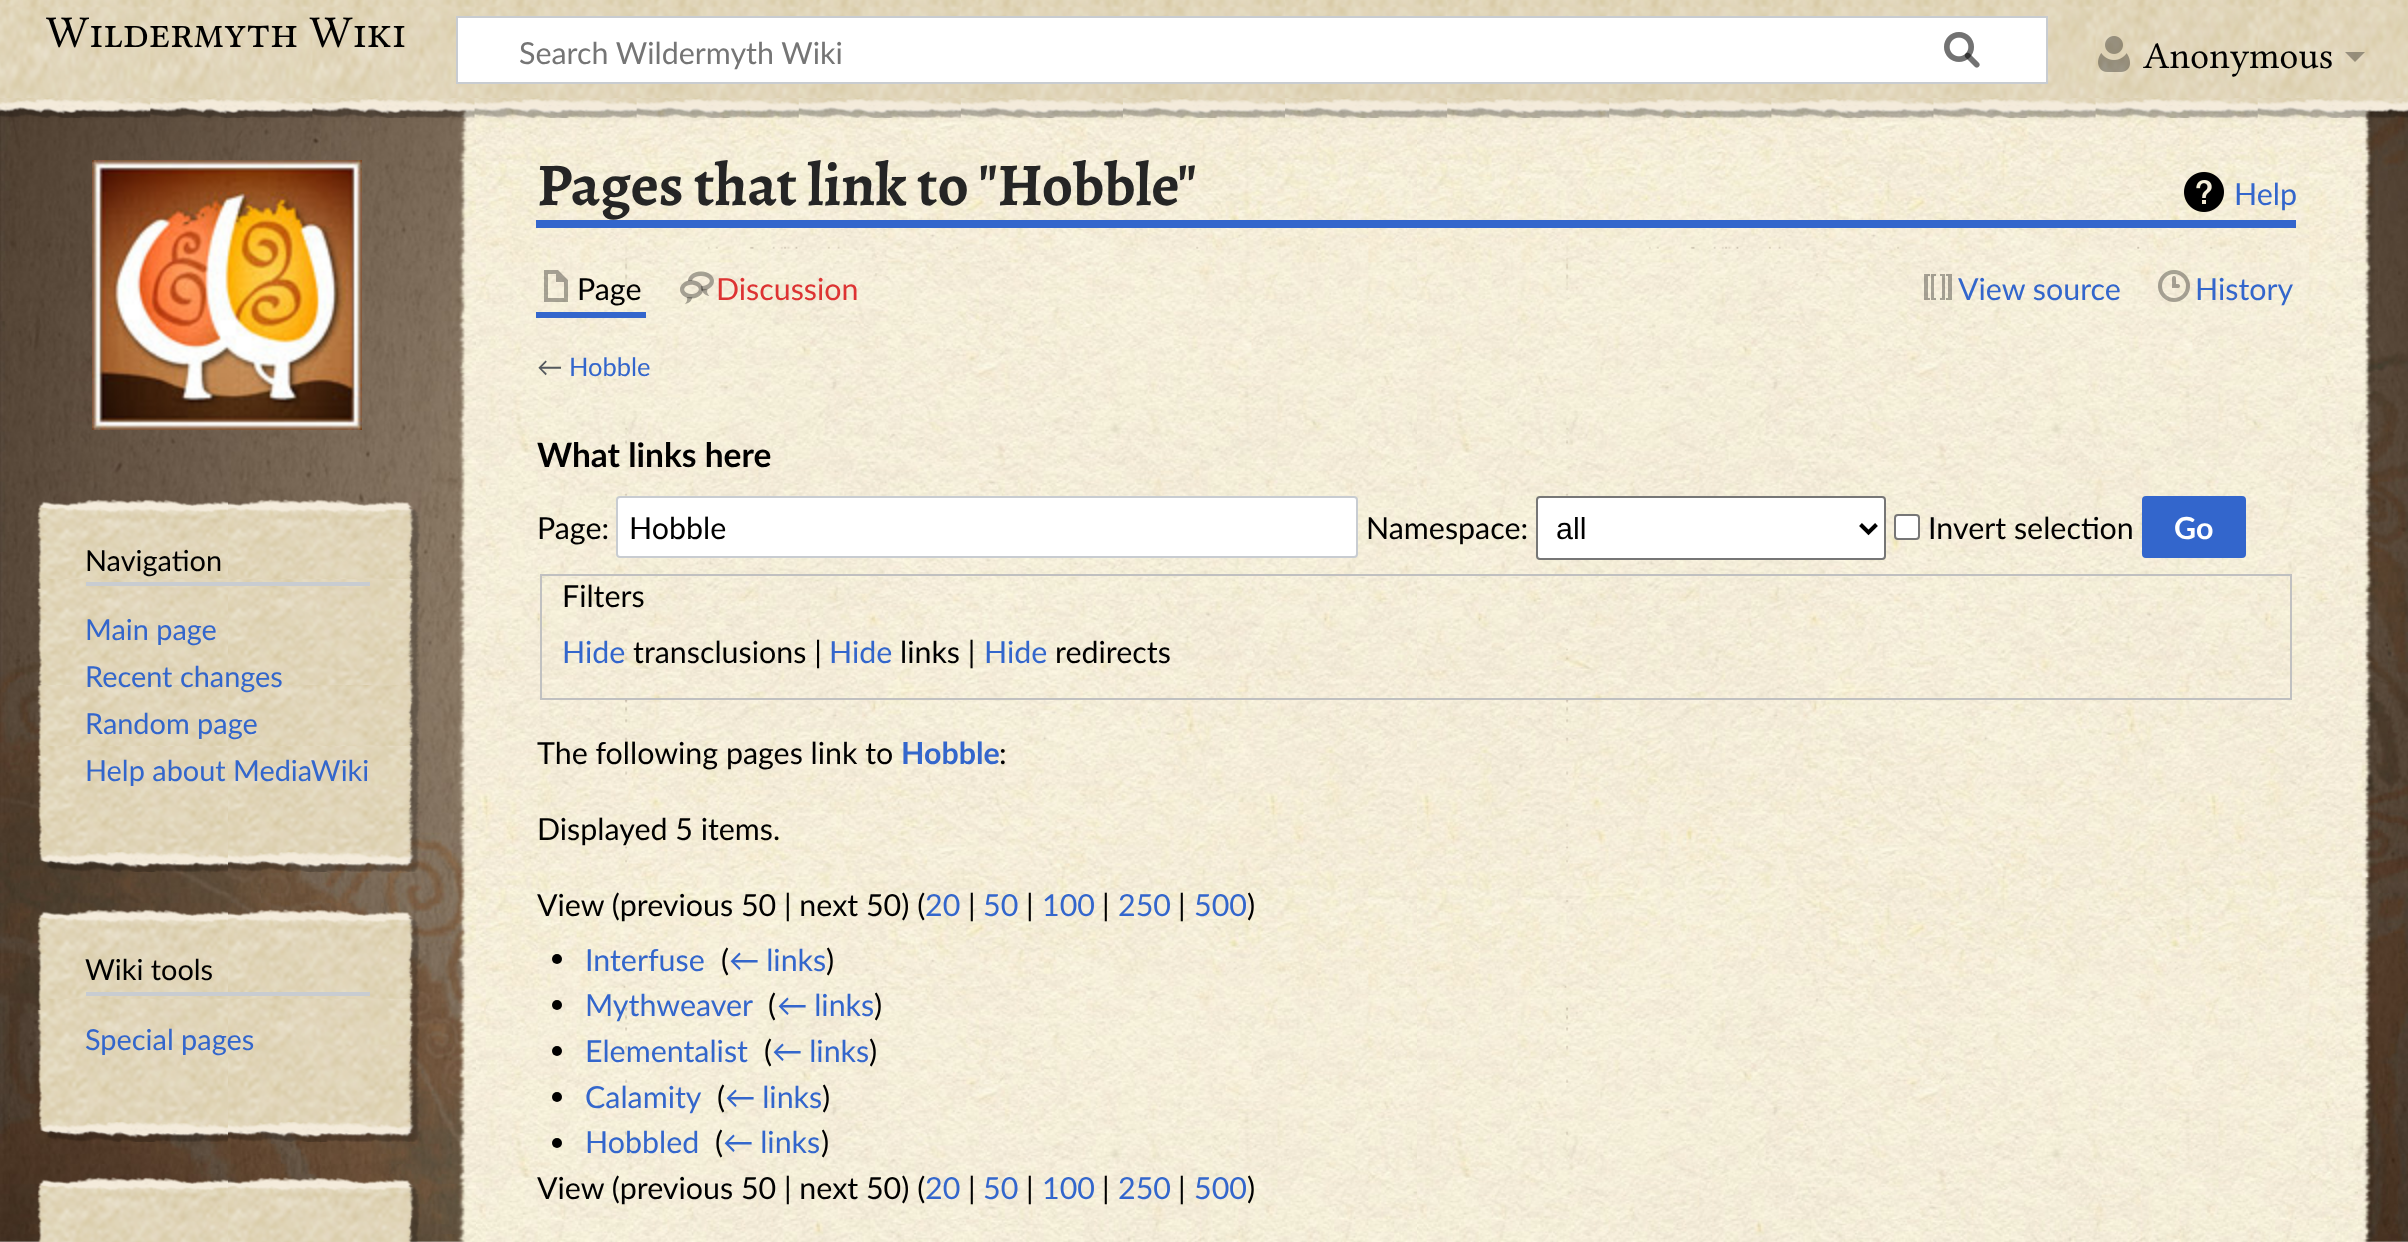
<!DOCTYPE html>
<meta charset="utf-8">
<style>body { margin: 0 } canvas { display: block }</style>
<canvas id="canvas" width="2408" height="1242"></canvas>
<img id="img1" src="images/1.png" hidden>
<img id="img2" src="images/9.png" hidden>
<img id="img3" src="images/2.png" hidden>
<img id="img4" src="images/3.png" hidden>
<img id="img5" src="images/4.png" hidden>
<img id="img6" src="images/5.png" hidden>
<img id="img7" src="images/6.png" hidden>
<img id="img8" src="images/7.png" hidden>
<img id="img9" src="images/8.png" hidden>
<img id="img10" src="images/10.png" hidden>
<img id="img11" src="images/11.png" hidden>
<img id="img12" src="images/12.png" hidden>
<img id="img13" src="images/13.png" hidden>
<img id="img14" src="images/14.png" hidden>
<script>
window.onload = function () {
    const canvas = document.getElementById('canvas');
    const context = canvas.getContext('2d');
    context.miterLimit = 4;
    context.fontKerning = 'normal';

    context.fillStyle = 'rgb(255, 255, 255)';
    context.fillRect(0, 0, 2408, 1242);
    context.drawImage(document.getElementById('img1'), 0, 105, 2408, 1137);
    context.drawImage(document.getElementById('img2'), 457, 106, 1918, 1136);
    context.fillStyle = 'rgba(0, 0, 0, 0.2)';
    context.filter = 'blur(2px)';
    context.beginPath();
    context.rect(0, 96, 2408, 10);
    context.fill();
    context.filter = 'none';
    context.fillStyle = 'rgba(0, 0, 0, 0.07)';
    context.filter = 'blur(3px)';
    context.beginPath();
    context.rect(-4, 98, 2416, 18);
    context.fill();
    context.filter = 'none';
    context.drawImage(document.getElementById('img3'), 0, 0, 2408, 118);
    context.fillStyle = 'rgb(255, 255, 255)';
    context.beginPath();
    context.rect(457, 17, 1590, 66);
    context.fill();
    context.strokeStyle = 'rgb(200, 204, 209)';
    context.lineWidth = 2;
    context.stroke();
    context.drawImage(document.getElementById('img4'), 1944, 32, 36, 36);
    context.drawImage(document.getElementById('img5'), 1944, 32, 36, 36);
    context.drawImage(document.getElementById('img6'), 2098, 36, 32, 36);
    context.fillStyle = 'rgba(0, 0, 0, 0.33)';
    context.beginPath();
    context.moveTo(2365, 52);
    context.lineTo(2355, 62);
    context.lineTo(2345, 52);
    context.closePath();
    context.fill();
    context.drawImage(document.getElementById('img7'), 92, 160, 270, 270);
    context.drawImage(document.getElementById('img8'), 37, 499, 383, 373);
    context.fillStyle = 'rgb(200, 204, 209)';
    context.fillRect(86, 582, 284, 4);
    context.drawImage(document.getElementById('img9'), 37, 909, 383, 233);
    context.fillRect(86, 992, 284, 4);
    context.fillStyle = 'rgb(51, 102, 204)';
    context.fillRect(536, 220, 1760, 8);
    context.drawImage(document.getElementById('img10'), 2184, 172, 40, 40);
    context.fillRect(536, 312, 110, 6);
    context.fillStyle = 'rgba(0, 0, 0, 0.33)';
    context.beginPath();
    context.moveTo(544, 270);
    context.lineTo(544, 302);
    context.lineTo(568, 302);
    context.lineTo(568, 280);
    context.lineTo(558, 270);
    context.closePath();
    context.moveTo(548, 274);
    context.lineTo(556, 274);
    context.lineTo(556, 282);
    context.lineTo(564, 282);
    context.lineTo(564, 298);
    context.lineTo(548, 298);
    context.closePath();
    context.fill();
    context.drawImage(document.getElementById('img11'), 680, 271, 34, 33);
    context.drawImage(document.getElementById('img12'), 1924, 274, 28, 26);
    context.drawImage(document.getElementById('img13'), 2158, 270, 32, 32);
    context.fillStyle = 'rgb(255, 255, 255)';
    context.beginPath();
    context.roundRect(617, 497, 740, 60, 3);
    context.fill();
    context.stroke();
    context.beginPath();
    context.roundRect(1537, 497, 348, 62, 3);
    context.fill();
    context.strokeStyle = 'rgb(118, 118, 118)';
    context.stroke();
    context.beginPath();
    context.moveTo(1860.5, 524.5);
    context.lineTo(1868.5, 532.5);
    context.lineTo(1876.5, 524.5);
    context.strokeStyle = 'rgb(0, 0, 0)';
    context.lineWidth = 4;
    context.stroke();
    context.beginPath();
    context.roundRect(1895, 515, 24, 24, 3);
    context.fill();
    context.strokeStyle = 'rgb(118, 118, 118)';
    context.lineWidth = 2;
    context.stroke();
    context.fillStyle = 'rgb(51, 102, 204)';
    context.beginPath();
    context.roundRect(2143, 497, 102, 60, 3);
    context.fill();
    context.strokeStyle = 'rgb(51, 102, 204)';
    context.stroke();
    context.strokeStyle = 'rgb(192, 192, 192)';
    context.strokeRect(541, 575, 1750, 124);
    context.fillStyle = 'rgb(0, 0, 0)';
    context.beginPath();
    context.arc(557, 959, 5, 0, 2 * Math.PI);
    context.fill();
    context.beginPath();
    context.arc(557, 1005, 5, 0, 2 * Math.PI);
    context.fill();
    context.beginPath();
    context.arc(557, 1051, 5, 0, 2 * Math.PI);
    context.fill();
    context.beginPath();
    context.arc(557, 1097, 5, 0, 2 * Math.PI);
    context.fill();
    context.beginPath();
    context.arc(557, 1143, 5, 0, 2 * Math.PI);
    context.fill();
    context.drawImage(document.getElementById('img14'), 37, 1177, 383, 65);
    context.font = '45.5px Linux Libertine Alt';
    context.fillText('Wildermyth Wiki', 46, 47);
    context.font = '30.4px Lato';
    context.fillStyle = 'rgb(117, 117, 117)';
    context.fillText('Search Wildermyth Wiki', 519, 64);
    context.font = '38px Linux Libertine';
    context.fillStyle = 'rgb(0, 0, 0)';
    context.fillText('Anonymous', 2143, 68);
    context.font = '28.9px Lato';
    context.fillText('Navigation', 85, 571);
    context.fillStyle = 'rgb(51, 102, 204)';
    context.fillText('Main page', 85, 640);
    context.fillText('Recent changes', 85, 687);
    context.fillText('Random page', 85, 734);
    context.fillText('Help about MediaWiki', 85, 781);
    context.fillStyle = 'rgb(0, 0, 0)';
    context.fillText('Wiki tools', 85, 980);
    context.fillStyle = 'rgb(51, 102, 204)';
    context.fillText('Special pages', 85, 1050);
    context.font = 'bold 60.75px Alegreya';
    context.fillStyle = 'rgb(37, 37, 37)';
    context.fillText('Pages that link to "Hobble"', 537, 205);
    context.font = '30.4px Lato';
    context.fillStyle = 'rgb(51, 102, 204)';
    context.fillText('Help', 2234, 205);
    context.fillStyle = 'rgb(0, 0, 0)';
    context.fillText('Page', 577, 300);
    context.fillStyle = 'rgb(221, 51, 51)';
    context.fillText('Discussion', 716, 300);
    context.fillStyle = 'rgb(51, 102, 204)';
    context.fillText('View source', 1958, 300);
    context.fillText('History', 2195, 300);
    context.font = '25.5px Lato';
    context.fillStyle = 'rgb(84, 89, 93)';
    context.fillText('←', 537, 376);
    context.fillStyle = 'rgb(51, 102, 204)';
    context.fillText('Hobble', 569, 376);
    context.font = 'bold 33.5px Lato';
    context.fillStyle = 'rgb(0, 0, 0)';
    context.fillText('What links here', 537, 467);
    context.font = '30.4px Lato';
    context.fillText('Page:', 537, 539);
    context.fillText('Hobble', 629, 539);
    context.fillText('Namespace:', 1366, 539);
    context.font = '30.4px Liberation Sans';
    context.fillText('all', 1556, 539);
    context.font = '30.4px Lato';
    context.fillText('Invert selection', 1928, 539);
    context.font = 'bold 30.4px Lato';
    context.fillStyle = 'rgb(255, 255, 255)';
    context.fillText('Go', 2174, 539);
    context.font = '30.4px Lato';
    context.fillStyle = 'rgb(0, 0, 0)';
    context.fillText('Filters', 562, 607);
    context.fillStyle = 'rgb(51, 102, 204)';
    context.fillText('Hide', 562, 663);
    context.fillStyle = 'rgb(0, 0, 0)';
    context.fillText('transclusions |', 633, 663);
    context.fillStyle = 'rgb(51, 102, 204)';
    context.fillText('Hide', 829, 663);
    context.fillStyle = 'rgb(0, 0, 0)';
    context.fillText('links |', 900, 663);
    context.fillStyle = 'rgb(51, 102, 204)';
    context.fillText('Hide', 984, 663);
    context.fillStyle = 'rgb(0, 0, 0)';
    context.fillText('redirects', 1055, 663);
    context.fillText('The following pages link to', 537, 764);
    context.font = 'bold 30.4px Lato';
    context.fillStyle = 'rgb(51, 102, 204)';
    context.fillText('Hobble', 901, 764);
    context.font = '30.4px Lato';
    context.fillStyle = 'rgb(0, 0, 0)';
    context.fillText(':', 999, 764);
    context.fillText('Displayed 5 items.', 537, 840);
    context.fillText('View (previous 50 | next 50) (', 537, 916);
    context.fillStyle = 'rgb(51, 102, 204)';
    context.fillText('20', 925, 916);
    context.fillStyle = 'rgb(0, 0, 0)';
    context.fillText('|', 968, 916);
    context.fillStyle = 'rgb(51, 102, 204)';
    context.fillText('50', 983, 916);
    context.fillStyle = 'rgb(0, 0, 0)';
    context.fillText('|', 1026, 916);
    context.fillStyle = 'rgb(51, 102, 204)';
    context.fillText('100', 1042, 916);
    context.fillStyle = 'rgb(0, 0, 0)';
    context.fillText('|', 1102, 916);
    context.fillStyle = 'rgb(51, 102, 204)';
    context.fillText('250', 1118, 916);
    context.fillStyle = 'rgb(0, 0, 0)';
    context.fillText('|', 1178, 916);
    context.fillStyle = 'rgb(51, 102, 204)';
    context.fillText('500', 1194, 916);
    context.fillStyle = 'rgb(0, 0, 0)';
    context.fillText(')', 1247, 916);
    context.fillStyle = 'rgb(51, 102, 204)';
    context.fillText('Interfuse', 585, 971);
    context.fillStyle = 'rgb(0, 0, 0)';
    context.fillText('(', 721, 971);
    context.wordSpacing = '-1px';
    context.fillStyle = 'rgb(51, 102, 204)';
    context.fillText('← links', 729, 971);
    context.wordSpacing = '0px';
    context.fillStyle = 'rgb(0, 0, 0)';
    context.fillText(')', 826, 971);
    context.fillStyle = 'rgb(51, 102, 204)';
    context.fillText('Mythweaver', 585, 1016);
    context.fillStyle = 'rgb(0, 0, 0)';
    context.fillText('(', 768, 1016);
    context.wordSpacing = '-1px';
    context.fillStyle = 'rgb(51, 102, 204)';
    context.fillText('← links', 777, 1016);
    context.wordSpacing = '0px';
    context.fillStyle = 'rgb(0, 0, 0)';
    context.fillText(')', 874, 1016);
    context.fillStyle = 'rgb(51, 102, 204)';
    context.fillText('Elementalist', 585, 1062);
    context.fillStyle = 'rgb(0, 0, 0)';
    context.fillText('(', 764, 1062);
    context.wordSpacing = '-1px';
    context.fillStyle = 'rgb(51, 102, 204)';
    context.fillText('← links', 772, 1062);
    context.wordSpacing = '0px';
    context.fillStyle = 'rgb(0, 0, 0)';
    context.fillText(')', 869, 1062);
    context.fillStyle = 'rgb(51, 102, 204)';
    context.fillText('Calamity', 585, 1108);
    context.fillStyle = 'rgb(0, 0, 0)';
    context.fillText('(', 717, 1108);
    context.wordSpacing = '-1px';
    context.fillStyle = 'rgb(51, 102, 204)';
    context.fillText('← links', 725, 1108);
    context.wordSpacing = '0px';
    context.fillStyle = 'rgb(0, 0, 0)';
    context.fillText(')', 822, 1108);
    context.fillStyle = 'rgb(51, 102, 204)';
    context.fillText('Hobbled', 585, 1153);
    context.fillStyle = 'rgb(0, 0, 0)';
    context.fillText('(', 715, 1153);
    context.wordSpacing = '-1px';
    context.fillStyle = 'rgb(51, 102, 204)';
    context.fillText('← links', 723, 1153);
    context.wordSpacing = '0px';
    context.fillStyle = 'rgb(0, 0, 0)';
    context.fillText(')', 821, 1153);
    context.fillText('View (previous 50 | next 50) (', 537, 1199);
    context.fillStyle = 'rgb(51, 102, 204)';
    context.fillText('20', 925, 1199);
    context.fillStyle = 'rgb(0, 0, 0)';
    context.fillText('|', 968, 1199);
    context.fillStyle = 'rgb(51, 102, 204)';
    context.fillText('50', 983, 1199);
    context.fillStyle = 'rgb(0, 0, 0)';
    context.fillText('|', 1026, 1199);
    context.fillStyle = 'rgb(51, 102, 204)';
    context.fillText('100', 1042, 1199);
    context.fillStyle = 'rgb(0, 0, 0)';
    context.fillText('|', 1102, 1199);
    context.fillStyle = 'rgb(51, 102, 204)';
    context.fillText('250', 1118, 1199);
    context.fillStyle = 'rgb(0, 0, 0)';
    context.fillText('|', 1178, 1199);
    context.fillStyle = 'rgb(51, 102, 204)';
    context.fillText('500', 1194, 1199);
    context.fillStyle = 'rgb(0, 0, 0)';
    context.fillText(')', 1247, 1199);
};
</script>
